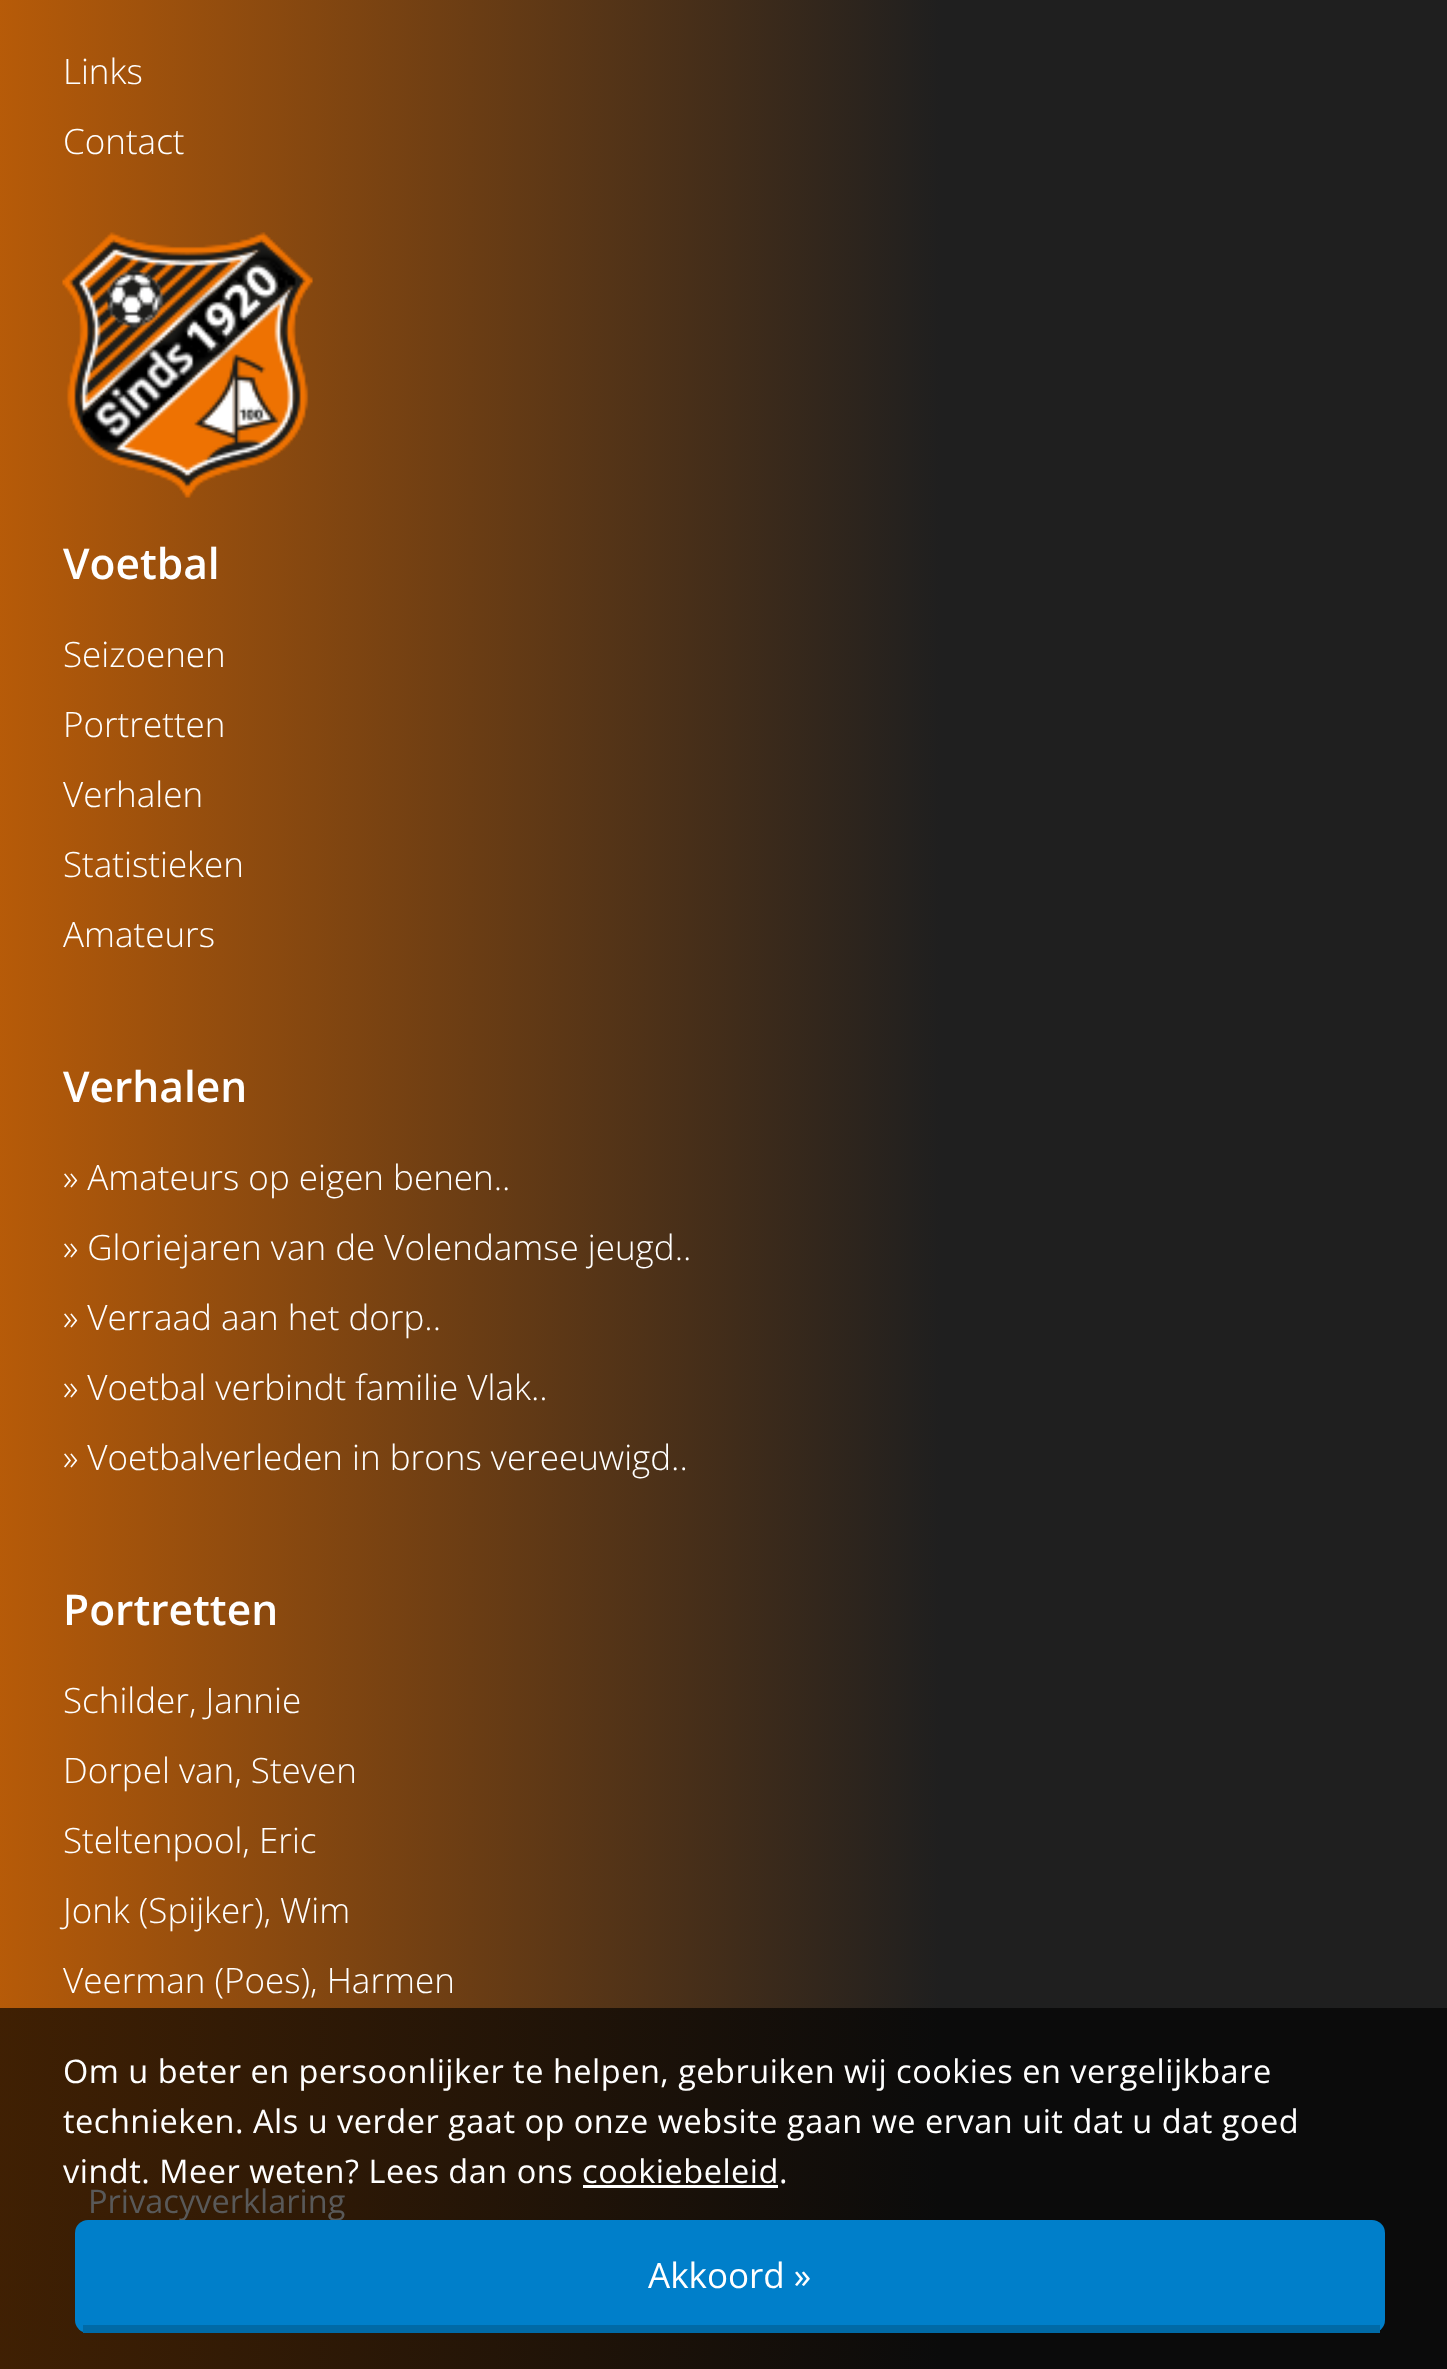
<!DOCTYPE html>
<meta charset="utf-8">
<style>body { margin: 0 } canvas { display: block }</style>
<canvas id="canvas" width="1447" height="2369"></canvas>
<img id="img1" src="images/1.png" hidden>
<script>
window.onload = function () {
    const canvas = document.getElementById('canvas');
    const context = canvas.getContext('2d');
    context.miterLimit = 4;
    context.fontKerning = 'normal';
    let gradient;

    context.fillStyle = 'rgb(255, 255, 255)';
    context.fillRect(0, 0, 1447, 2369);
    gradient = context.createLinearGradient(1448, 1123, -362, 1123);
    gradient.addColorStop(0.28, 'rgb(31, 31, 31)');
    gradient.addColorStop(1, 'rgb(241, 114, 0)');
    context.fillStyle = gradient;
    context.fillRect(0, 0, 1447, 2008);
    gradient = context.createLinearGradient(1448, 1123, -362, 1123);
    gradient.addColorStop(0.28, 'rgb(11, 11, 11)');
    gradient.addColorStop(1, 'rgb(84, 40, 0)');
    context.fillStyle = gradient;
    context.fillRect(0, 2008, 1447, 361);
    context.drawImage(document.getElementById('img1'), 62, 232, 251, 266);
    context.fillStyle = 'rgb(255, 255, 255)';
    context.fillRect(583, 2185, 195, 3);
    context.font = '300 35px Open Sans';
    context.fillText('Links', 63, 84);
    context.fillText('Contact', 63, 154);
    context.font = '600 42.5px Open Sans';
    context.fillText('Voetbal', 63, 579);
    context.font = '300 35px Open Sans';
    context.fillText('Seizoenen', 63, 667);
    context.fillText('Portretten', 63, 737);
    context.fillText('Verhalen', 63, 807);
    context.fillText('Statistieken', 63, 877);
    context.fillText('Amateurs', 63, 947);
    context.font = '600 42.5px Open Sans';
    context.fillText('Verhalen', 63, 1102);
    context.font = '300 35px Open Sans';
    context.fillText('» Amateurs op eigen benen..', 63, 1190);
    context.fillText('» Gloriejaren van de Volendamse jeugd..', 63, 1260);
    context.fillText('» Verraad aan het dorp..', 63, 1330);
    context.fillText('» Voetbal verbindt familie Vlak..', 63, 1400);
    context.fillText('» Voetbalverleden in brons vereeuwigd..', 63, 1470);
    context.font = '600 42.5px Open Sans';
    context.fillText('Portretten', 63, 1625);
    context.font = '300 35px Open Sans';
    context.fillText('Schilder, Jannie', 63, 1713);
    context.fillText('Dorpel van, Steven', 63, 1783);
    context.fillText('Steltenpool, Eric', 63, 1853);
    context.fillText('Jonk (Spijker), Wim', 63, 1923);
    context.fillText('Veerman (Poes), Harmen', 63, 1993);
    context.font = '32.5px Open Sans';
    context.fillStyle = 'rgb(89, 89, 89)';
    context.fillText('Privacyverklaring', 88, 2213);
    context.letterSpacing = '0.5px';
    context.fillStyle = 'rgb(255, 255, 255)';
    context.fillText('Om u beter en persoonlijker te helpen, gebruiken wij cookies en vergelijkbare', 63, 2083);
    context.fillText('technieken. Als u verder gaat op onze website gaan we ervan uit dat u dat goed', 63, 2133);
    context.fillText('vindt. Meer weten? Lees dan ons cookiebeleid.', 63, 2183);
    context.fillStyle = 'rgb(0, 127, 202)';
    context.beginPath();
    context.roundRect(75, 2220, 1310, 113, 13);
    context.fill();
    context.fillStyle = 'rgb(0, 106, 167)';
    context.fillRect(83, 2325, 1297, 8);
    context.letterSpacing = '0px';
    context.font = '35px Open Sans';
    context.fillStyle = 'rgb(255, 255, 255)';
    context.fillText('Akkoord »', 648, 2288);
};
</script>
